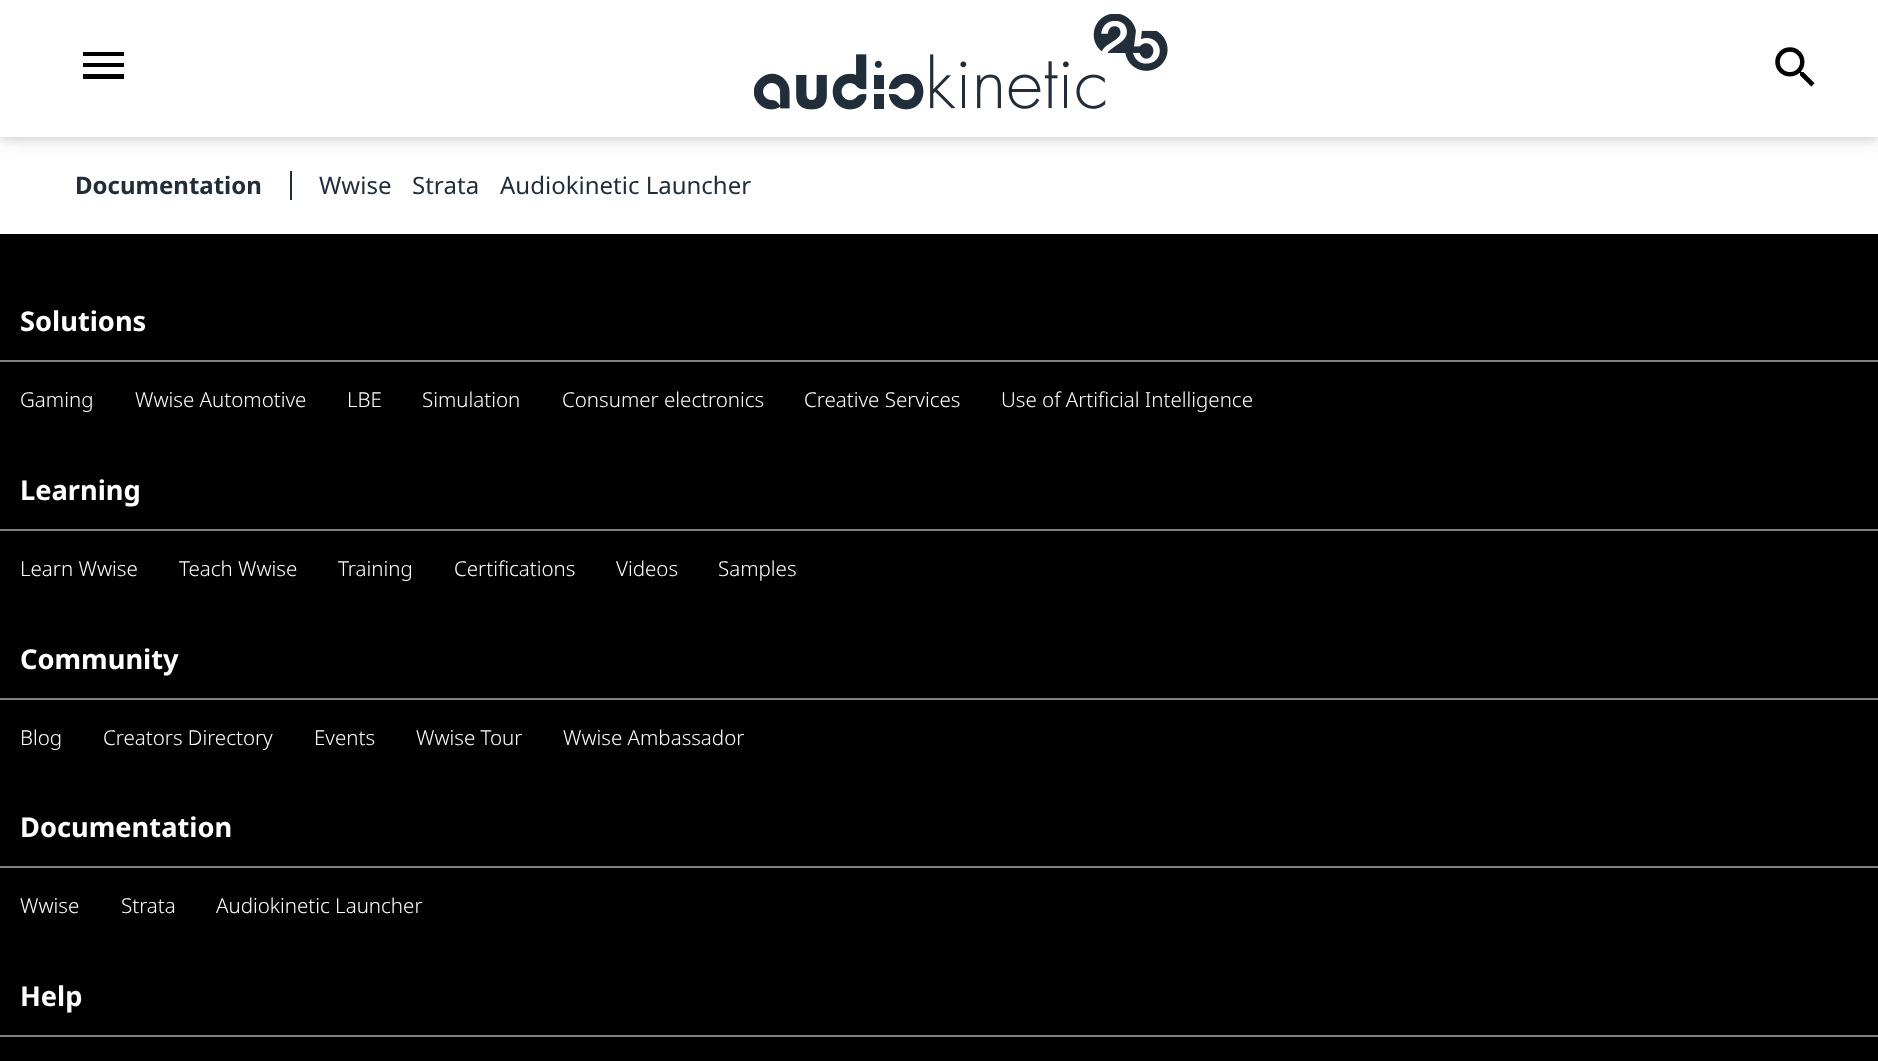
<!DOCTYPE html>
<meta charset="utf-8">
<style>body { margin: 0 } canvas { display: block }</style>
<canvas id="canvas" width="1878" height="1061"></canvas>
<img id="img1" src="images/1.png" hidden>
<img id="img2" src="images/2.png" hidden>
<script>
window.onload = function () {
    const canvas = document.getElementById('canvas');
    const context = canvas.getContext('2d');
    context.miterLimit = 4;
    context.fontKerning = 'normal';

    context.fillStyle = 'rgb(0, 0, 0)';
    context.fillRect(0, 0, 1878, 1061);
    context.fillStyle = 'rgb(255, 255, 255)';
    context.fillRect(0, 137, 1878, 97);
    context.fillStyle = 'rgb(33, 45, 57)';
    context.fillRect(290, 171, 2, 29);
    context.fillStyle = 'rgba(0, 0, 0, 0.06)';
    context.filter = 'blur(11px)';
    context.beginPath();
    context.rect(0, 5, 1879, 137);
    context.fill();
    context.filter = 'none';
    context.fillStyle = 'rgba(0, 0, 0, 0.12)';
    context.filter = 'blur(4.5px)';
    context.beginPath();
    context.rect(0, 2, 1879, 138);
    context.fill();
    context.filter = 'none';
    context.fillStyle = 'rgb(255, 255, 255)';
    context.fillRect(0, 0, 1878, 137);
    context.fillStyle = 'rgb(0, 0, 0)';
    context.beginPath();
    context.moveTo(83, 52);
    context.lineTo(124, 52);
    context.lineTo(124, 56);
    context.lineTo(83, 56);
    context.closePath();
    context.moveTo(83, 67);
    context.lineTo(83, 63);
    context.lineTo(124, 63);
    context.lineTo(124, 67);
    context.closePath();
    context.moveTo(83, 79);
    context.lineTo(83, 74);
    context.lineTo(124, 74);
    context.lineTo(124, 79);
    context.closePath();
    context.fill();
    context.drawImage(document.getElementById('img1'), 754, 14, 414, 96);
    context.drawImage(document.getElementById('img2'), 1775, 47, 40, 40);
    context.fillStyle = 'rgb(128, 128, 128)';
    context.fillRect(0, 360, 1878, 2);
    context.fillRect(0, 529, 1878, 2);
    context.fillRect(0, 698, 1878, 2);
    context.fillRect(0, 866, 1878, 2);
    context.fillRect(0, 1035, 1878, 2);
    context.font = 'bold 24px Noto Sans';
    context.fillStyle = 'rgb(33, 45, 57)';
    context.fillText('Documentation', 75, 194);
    context.font = '24px Noto Sans';
    context.fillText('Wwise', 319, 194);
    context.fillText('Strata', 412, 194);
    context.fillText('Audiokinetic Launcher', 500, 194);
    context.font = 'bold 27.25px Noto Sans';
    context.fillStyle = 'rgb(255, 255, 255)';
    context.fillText('Solutions', 20, 331);
    context.font = '300 20.5px Noto Sans';
    context.fillText('Gaming', 20, 407);
    context.fillText('Wwise Automotive', 135, 407);
    context.fillText('LBE', 347, 407);
    context.fillText('Simulation', 422, 407);
    context.fillText('Consumer electronics', 562, 407);
    context.fillText('Creative Services', 804, 407);
    context.fillText('Use of Artificial Intelligence', 1001, 407);
    context.font = 'bold 27.25px Noto Sans';
    context.fillText('Learning', 20, 500);
    context.font = '300 20.5px Noto Sans';
    context.fillText('Learn Wwise', 20, 576);
    context.fillText('Teach Wwise', 179, 576);
    context.fillText('Training', 338, 576);
    context.fillText('Certifications', 454, 576);
    context.fillText('Videos', 616, 576);
    context.fillText('Samples', 718, 576);
    context.font = 'bold 27.25px Noto Sans';
    context.fillText('Community', 20, 669);
    context.font = '300 20.5px Noto Sans';
    context.fillText('Blog', 20, 745);
    context.fillText('Creators Directory', 103, 745);
    context.fillText('Events', 314, 745);
    context.fillText('Wwise Tour', 416, 745);
    context.fillText('Wwise Ambassador', 563, 745);
    context.font = 'bold 27.25px Noto Sans';
    context.fillText('Documentation', 20, 837);
    context.font = '300 20.5px Noto Sans';
    context.fillText('Wwise', 20, 913);
    context.fillText('Strata', 121, 913);
    context.fillText('Audiokinetic Launcher', 216, 913);
    context.font = 'bold 27.25px Noto Sans';
    context.fillText('Help', 20, 1006);
};
</script>
